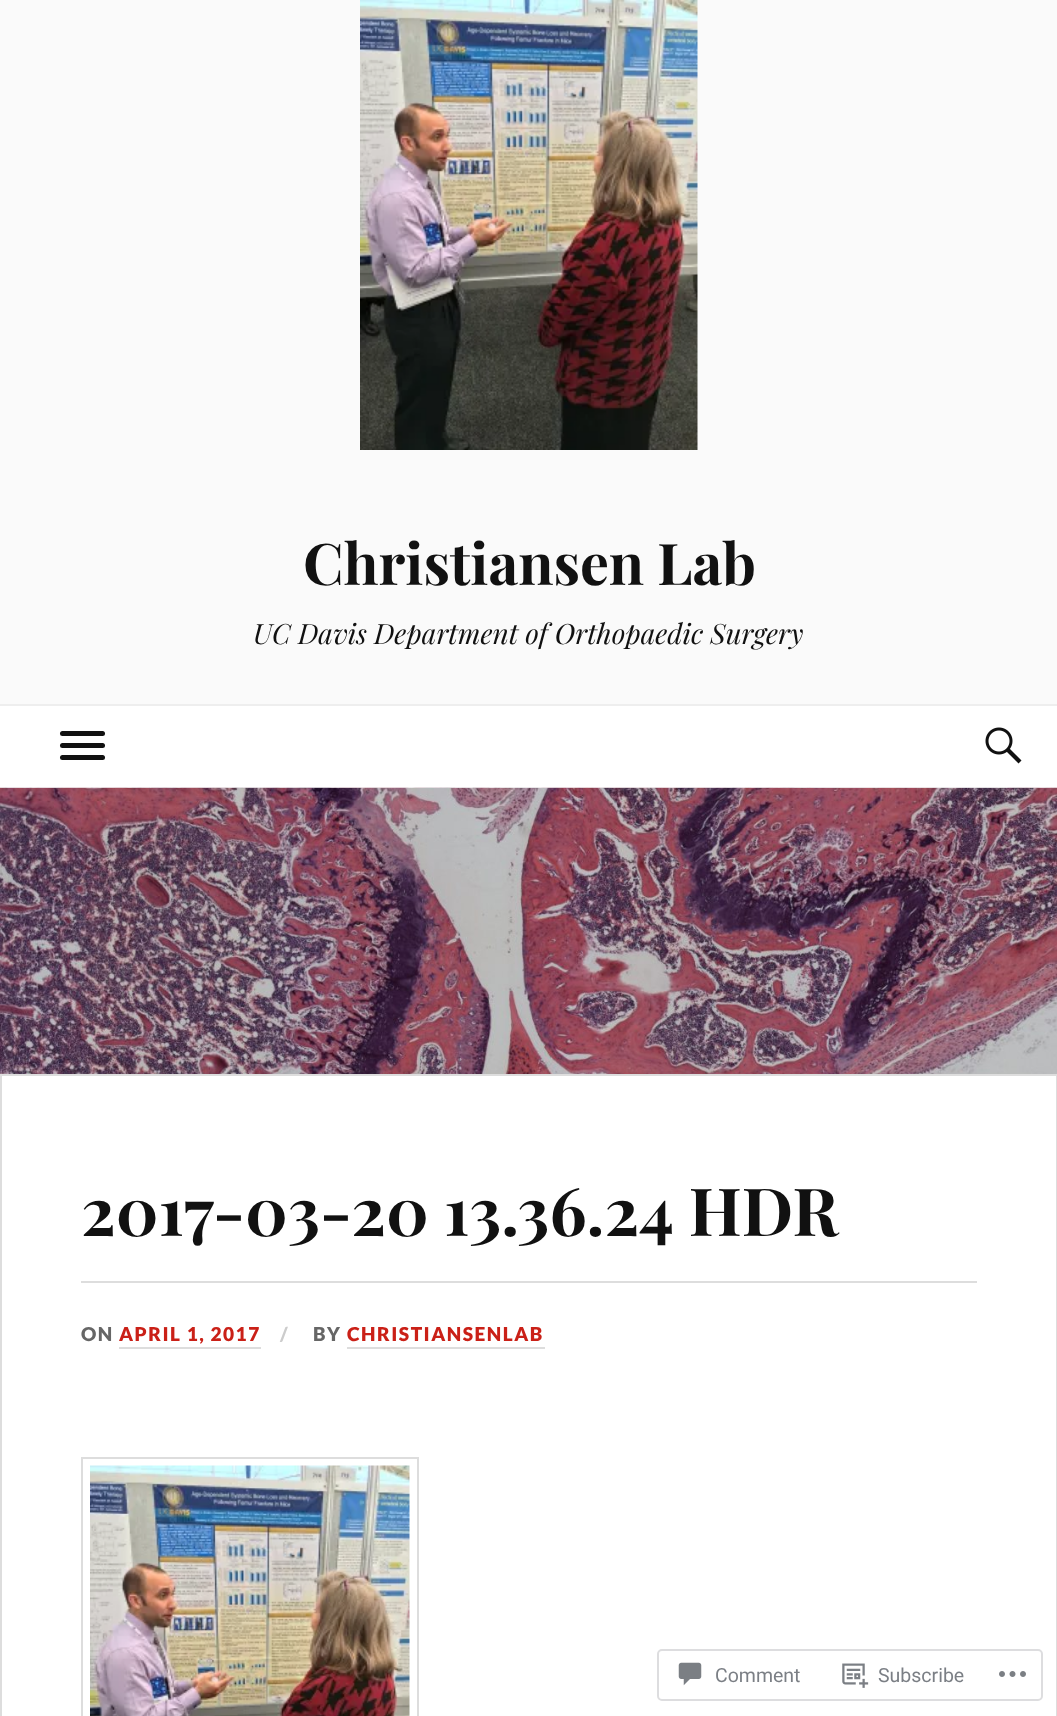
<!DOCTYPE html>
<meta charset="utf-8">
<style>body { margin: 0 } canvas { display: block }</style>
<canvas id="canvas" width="1057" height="1716"></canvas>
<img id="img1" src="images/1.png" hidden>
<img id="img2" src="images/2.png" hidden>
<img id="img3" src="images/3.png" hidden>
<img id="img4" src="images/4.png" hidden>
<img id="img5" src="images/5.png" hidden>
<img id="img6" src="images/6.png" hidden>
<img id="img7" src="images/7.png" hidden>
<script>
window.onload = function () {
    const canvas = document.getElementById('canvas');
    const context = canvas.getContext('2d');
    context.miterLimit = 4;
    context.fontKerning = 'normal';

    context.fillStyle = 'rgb(250, 250, 250)';
    context.fillRect(0, 0, 1057, 1716);
    context.drawImage(document.getElementById('img1'), 360, 0, 338, 450);
    context.fillStyle = 'rgb(255, 255, 255)';
    context.fillRect(0, 706, 1057, 82);
    context.fillStyle = 'rgb(238, 238, 238)';
    context.fillRect(0, 704, 1057, 2);
    context.fillStyle = 'rgb(17, 17, 17)';
    context.beginPath();
    context.roundRect(60, 731, 45, 5, 2.5);
    context.fill();
    context.beginPath();
    context.roundRect(60, 743, 45, 5, 2.5);
    context.fill();
    context.beginPath();
    context.roundRect(60, 755, 45, 5, 2.5);
    context.fill();
    context.drawImage(document.getElementById('img2'), 985, 727, 37, 37);
    context.drawImage(document.getElementById('img3'), 0, 787, 1057, 287);
    context.fillStyle = 'rgb(255, 255, 255)';
    context.fillRect(2, 1076, 1054, 640);
    context.fillStyle = 'rgb(221, 221, 221)';
    context.fillRect(0, 1074, 1057, 2);
    context.fillRect(1056, 1074, 1, 642);
    context.fillRect(0, 1074, 2, 642);
    context.fillRect(81, 1281, 896, 2);
    context.fillRect(119, 1347, 142, 2);
    context.fillRect(347, 1347, 198, 2);
    context.strokeStyle = 'rgb(221, 221, 221)';
    context.lineWidth = 2;
    context.strokeRect(82, 1458, 336, 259);
    context.drawImage(document.getElementById('img4'), 90, 1465, 320, 251);
    context.beginPath();
    context.roundRect(658, 1650, 384, 50, 4);
    context.strokeStyle = 'rgb(221, 221, 223)';
    context.stroke();
    context.drawImage(document.getElementById('img5'), 678, 1662, 24, 24);
    context.drawImage(document.getElementById('img6'), 842, 1663, 27, 25);
    context.drawImage(document.getElementById('img7'), 999, 1671, 27, 6);
    context.font = 'bold 57.5px Playfair Display';
    context.fillStyle = 'rgb(17, 17, 17)';
    context.fillText('Christiansen Lab', 303, 585);
    context.font = 'italic 28px Playfair Display';
    context.fillText('UC Davis Department of Orthopaedic Surgery', 253, 644);
    context.font = 'bold 66.25px Playfair Display';
    context.fillText('2017-03-20 13.36.24 HDR', 81, 1236);
    context.letterSpacing = '1.5px';
    context.font = '900 19.1px Lato';
    context.fillStyle = 'rgb(102, 102, 102)';
    context.fillText('ON', 81, 1341);
    context.fillStyle = 'rgb(202, 32, 23)';
    context.fillText('APRIL 1, 2017', 119, 1341);
    context.fillStyle = 'rgb(204, 204, 204)';
    context.fillText('/', 280, 1341);
    context.fillStyle = 'rgb(102, 102, 102)';
    context.fillText('BY', 313, 1341);
    context.fillStyle = 'rgb(202, 32, 23)';
    context.fillText('CHRISTIANSENLAB', 347, 1341);
    context.letterSpacing = '0px';
    context.font = '19.5px Roboto';
    context.fillStyle = 'rgb(123, 127, 133)';
    context.fillText('Comment', 715, 1682);
    context.fillText('Subscribe', 878, 1682);
};
</script>
